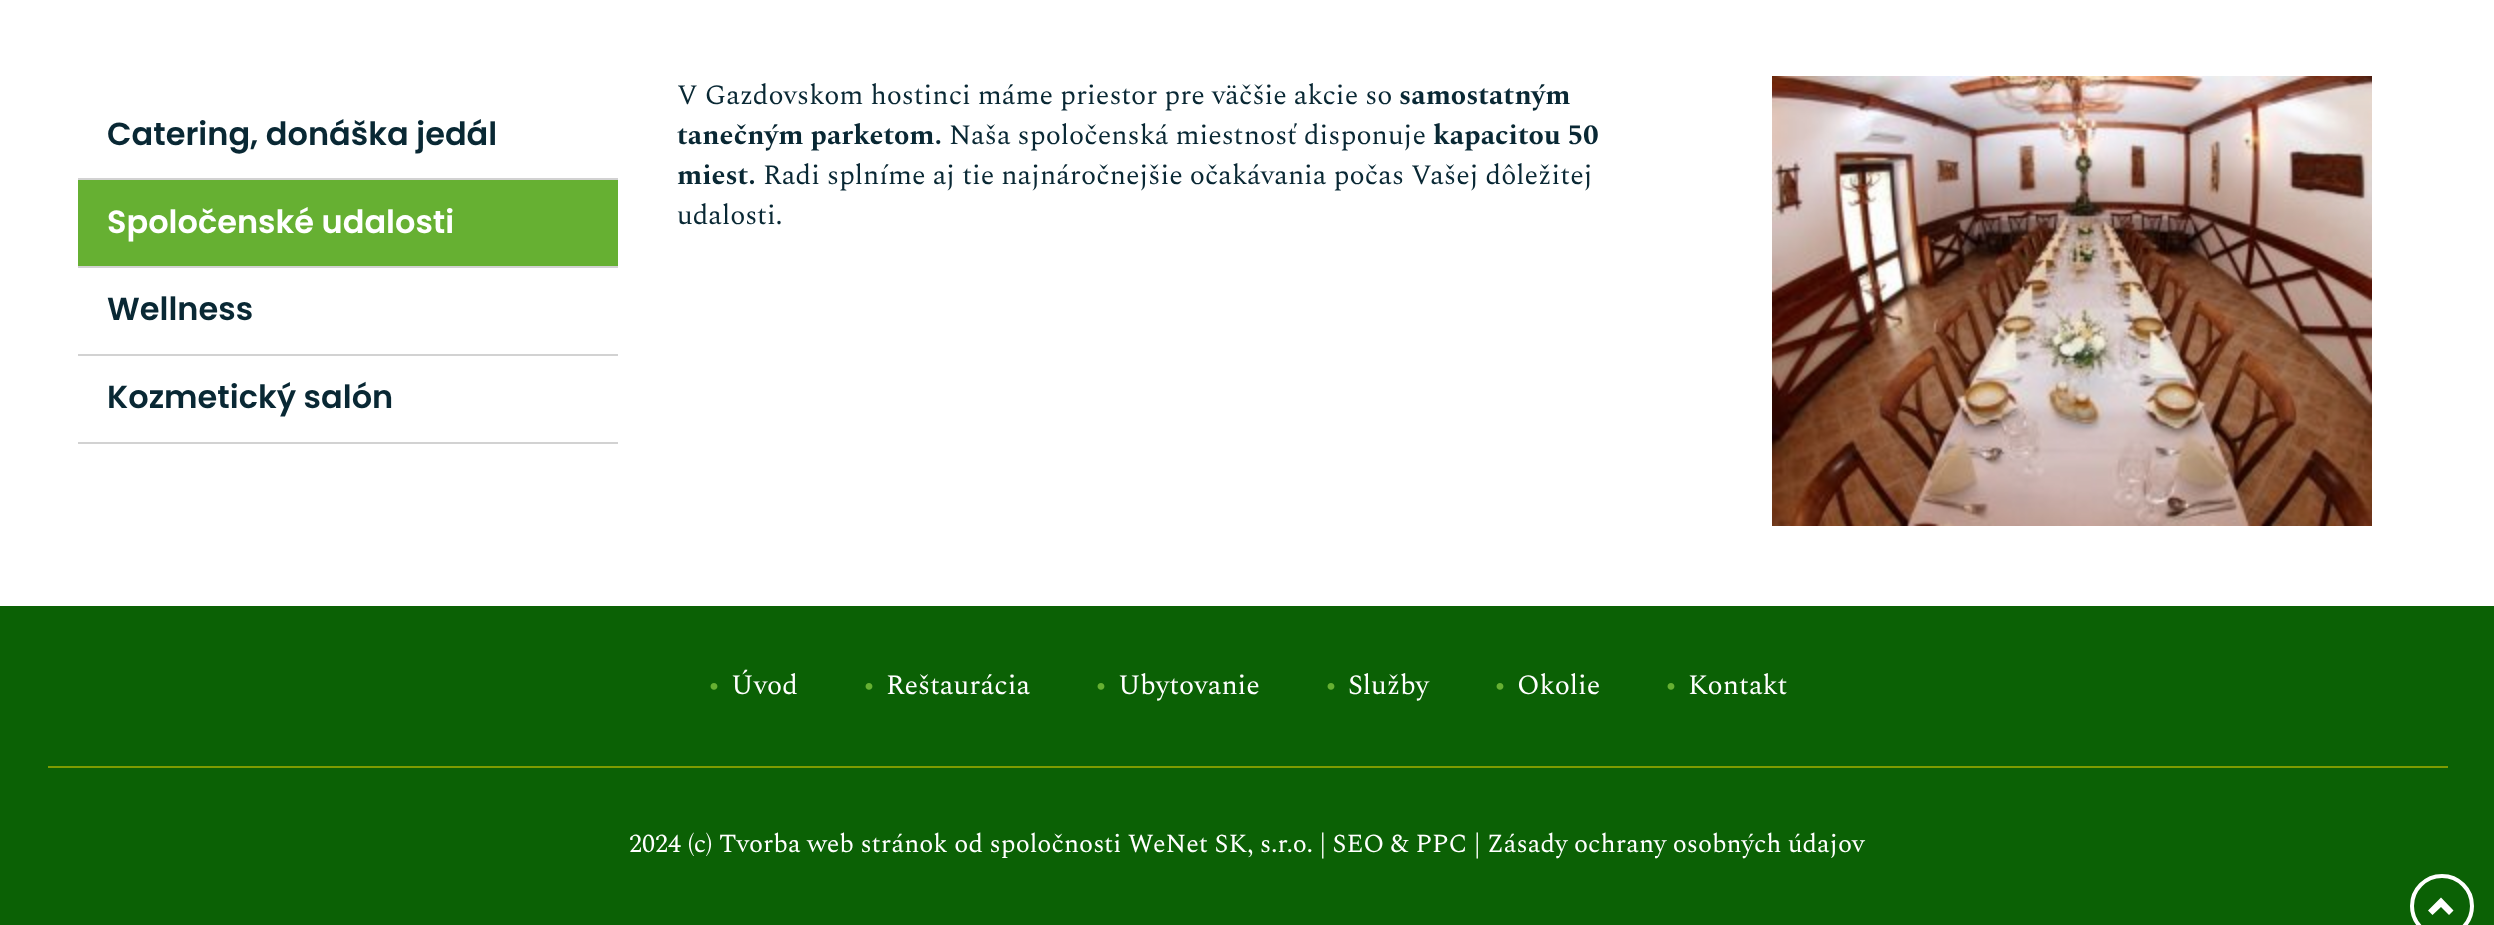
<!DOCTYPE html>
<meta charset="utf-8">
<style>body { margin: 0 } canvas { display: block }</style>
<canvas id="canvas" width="2494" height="925"></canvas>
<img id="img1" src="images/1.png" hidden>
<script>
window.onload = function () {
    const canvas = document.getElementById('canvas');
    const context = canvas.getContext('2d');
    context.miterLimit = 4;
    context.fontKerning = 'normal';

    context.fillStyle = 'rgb(255, 255, 255)';
    context.fillRect(0, 0, 2494, 925);
    context.fillStyle = 'rgb(210, 210, 210)';
    context.fillRect(78, 178, 540, 2);
    context.fillStyle = 'rgb(102, 176, 50)';
    context.fillRect(78, 180, 540, 86);
    context.fillStyle = 'rgb(210, 210, 210)';
    context.fillRect(78, 266, 540, 2);
    context.fillRect(78, 354, 540, 2);
    context.fillRect(78, 442, 540, 2);
    context.drawImage(document.getElementById('img1'), 1772, 76, 600, 450);
    context.fillStyle = 'rgb(11, 97, 5)';
    context.fillRect(0, 606, 2494, 319);
    context.fillStyle = 'rgb(125, 156, 1)';
    context.fillRect(48, 766, 2400, 2);
    context.beginPath();
    context.arc(2442, 906, 30, 0, 2 * Math.PI);
    context.strokeStyle = 'rgb(255, 255, 255)';
    context.lineWidth = 4;
    context.stroke();
    context.fillStyle = 'rgb(255, 255, 255)';
    context.beginPath();
    context.moveTo(2453.5, 910.5);
    context.lineTo(2449, 915);
    context.lineTo(2441, 907);
    context.lineTo(2432.5, 915);
    context.lineTo(2428, 910.5);
    context.lineTo(2441, 897.5);
    context.closePath();
    context.fill();
    context.font = '600 32px Poppins';
    context.fillStyle = 'rgb(9, 40, 52)';
    context.fillText('Catering, donáška jedál', 107, 145);
    context.fillStyle = 'rgb(255, 255, 255)';
    context.fillText('Spoločenské udalosti', 107, 233);
    context.fillStyle = 'rgb(9, 40, 52)';
    context.fillText('Wellness', 107, 320);
    context.fillText('Kozmetický salón', 107, 408);
    context.font = '28px Spectral';
    context.fillText('V Gazdovskom hostinci máme priestor pre väčšie akcie so', 677, 104);
    context.font = 'bold 28px Spectral';
    context.fillText('samostatným', 1399, 104);
    context.fillText('tanečným parketom.', 677, 144);
    context.font = '28px Spectral';
    context.fillText('Naša spoločenská miestnosť disponuje', 949, 144);
    context.font = 'bold 28px Spectral';
    context.fillText('kapacitou 50', 1433, 144);
    context.fillText('miest.', 677, 184);
    context.font = '28px Spectral';
    context.fillText('Radi splníme aj tie najnáročnejšie očakávania počas Vašej dôležitej', 763, 184);
    context.fillText('udalosti.', 677, 224);
    context.fillStyle = 'rgb(102, 176, 50)';
    context.fillText('•', 707, 694);
    context.fillStyle = 'rgb(255, 255, 255)';
    context.fillText('Úvod', 731, 694);
    context.fillStyle = 'rgb(102, 176, 50)';
    context.fillText('•', 862, 694);
    context.fillStyle = 'rgb(255, 255, 255)';
    context.fillText('Reštaurácia', 886, 694);
    context.fillStyle = 'rgb(102, 176, 50)';
    context.fillText('•', 1094, 694);
    context.fillStyle = 'rgb(255, 255, 255)';
    context.fillText('Ubytovanie', 1118, 694);
    context.fillStyle = 'rgb(102, 176, 50)';
    context.fillText('•', 1324, 694);
    context.fillStyle = 'rgb(255, 255, 255)';
    context.fillText('Služby', 1348, 694);
    context.fillStyle = 'rgb(102, 176, 50)';
    context.fillText('•', 1493, 694);
    context.fillStyle = 'rgb(255, 255, 255)';
    context.fillText('Okolie', 1517, 694);
    context.fillStyle = 'rgb(102, 176, 50)';
    context.fillText('•', 1664, 694);
    context.fillStyle = 'rgb(255, 255, 255)';
    context.fillText('Kontakt', 1688, 694);
    context.font = '26px Spectral';
    context.fillText('2024 (c) Tvorba web stránok od spoločnosti WeNet SK, s.r.o. | SEO & PPC | Zásady ochrany osobných údajov', 629, 852);
};
</script>
